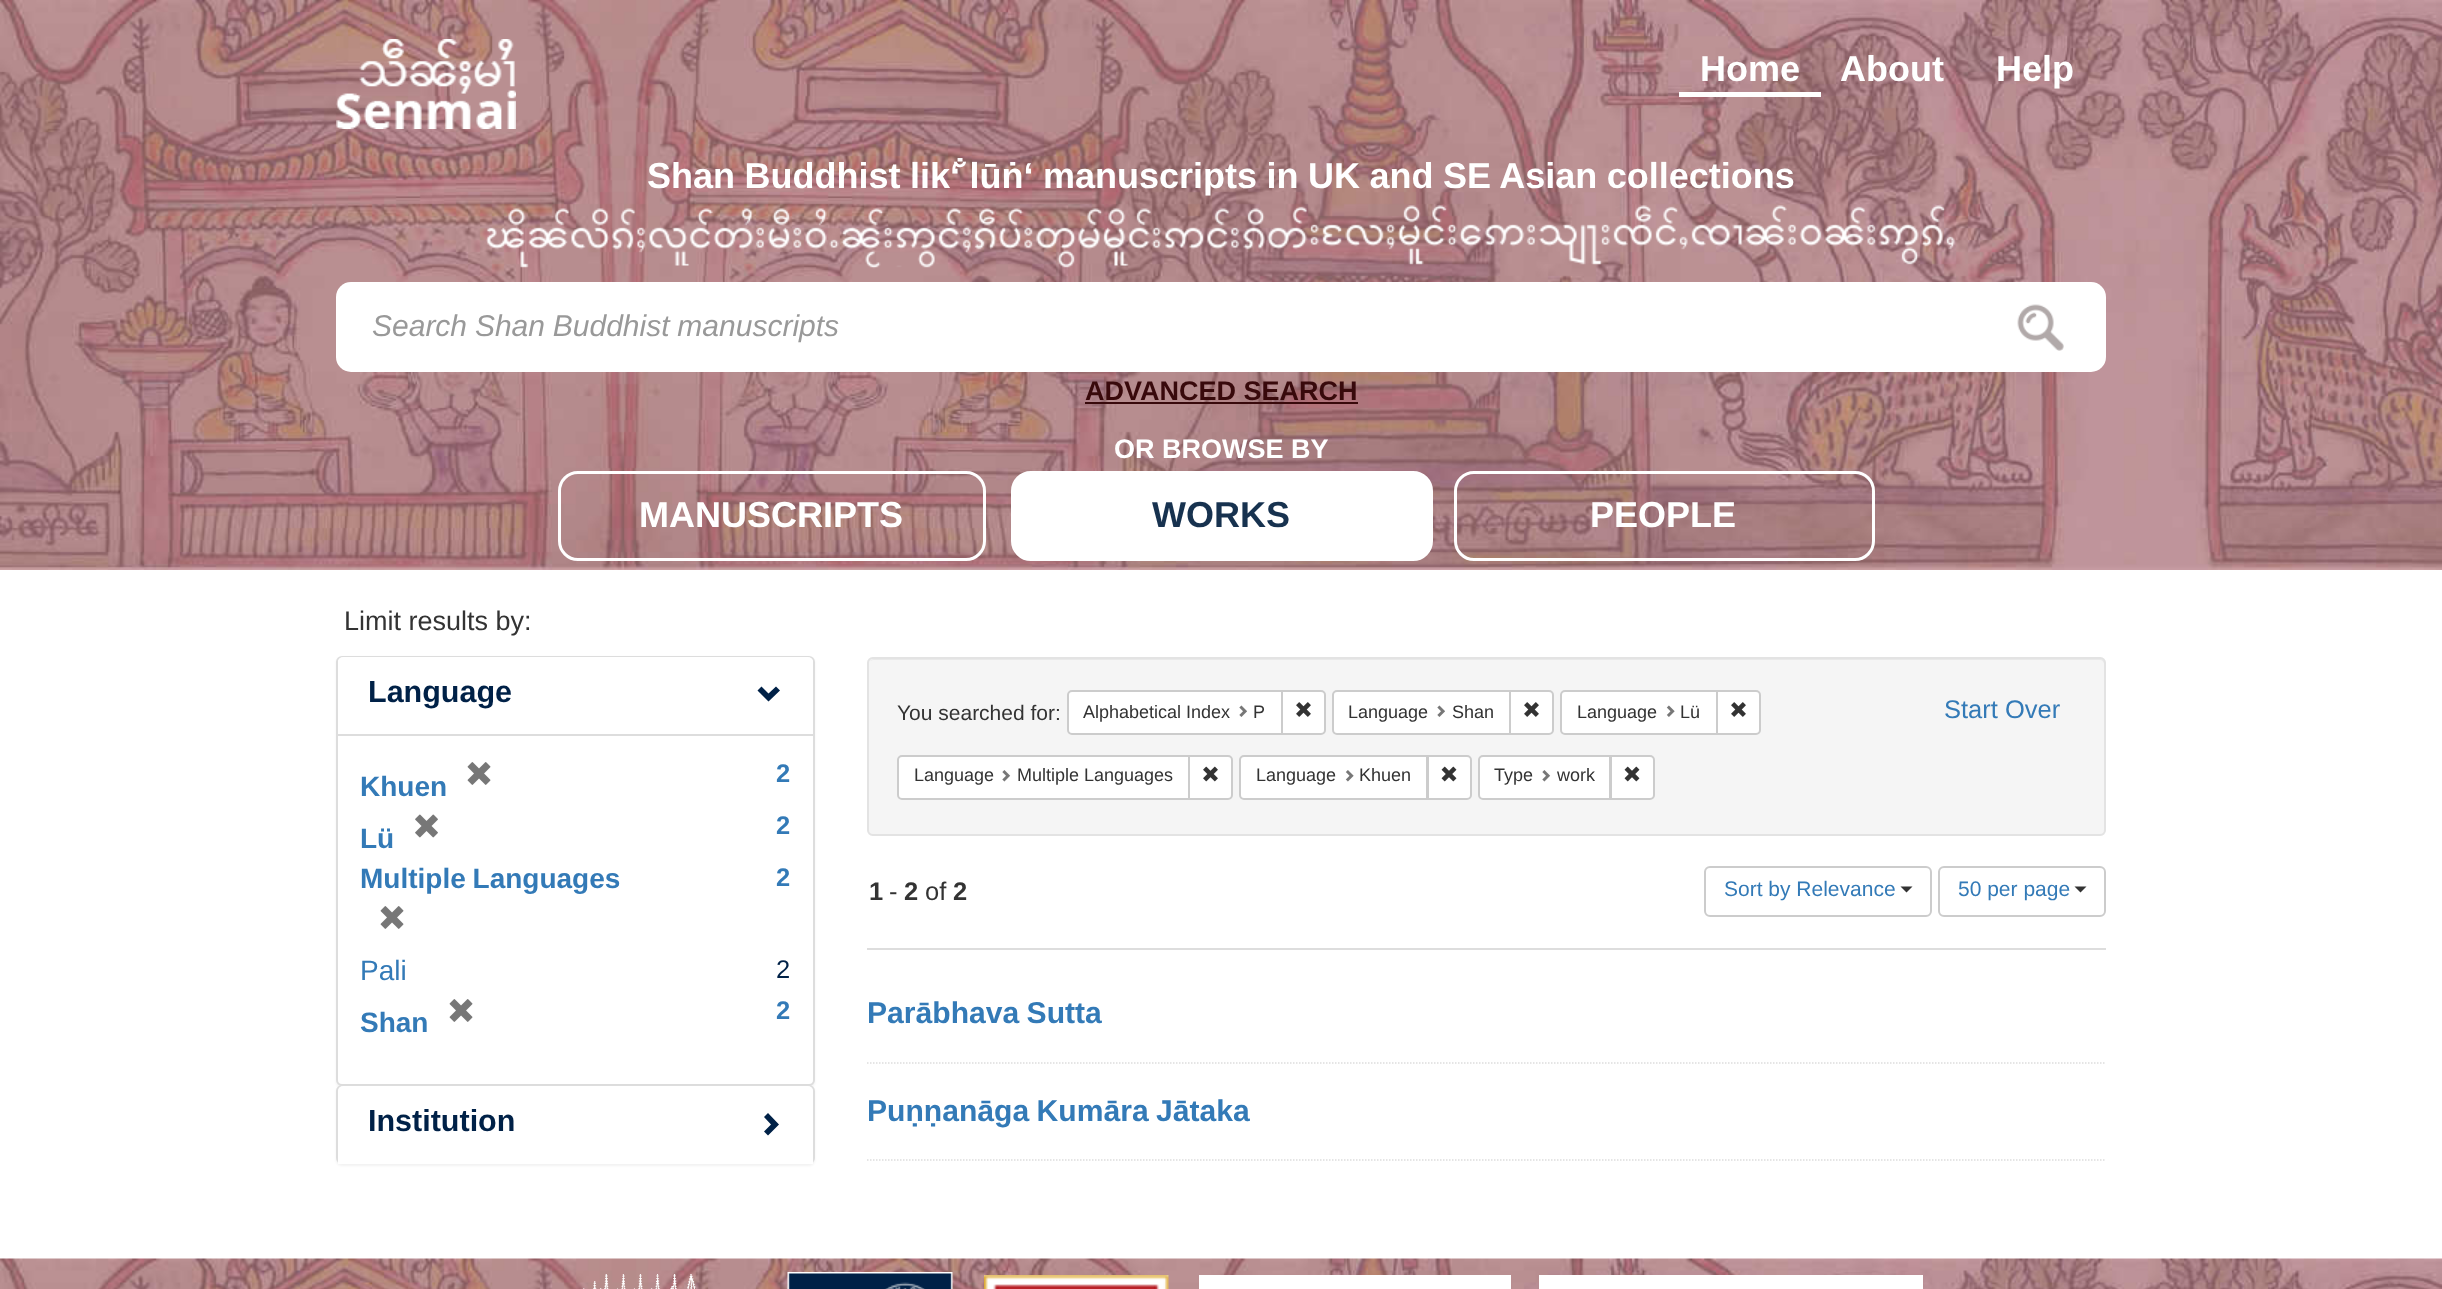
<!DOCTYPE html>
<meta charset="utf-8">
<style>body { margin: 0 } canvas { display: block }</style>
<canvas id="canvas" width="2442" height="1289"></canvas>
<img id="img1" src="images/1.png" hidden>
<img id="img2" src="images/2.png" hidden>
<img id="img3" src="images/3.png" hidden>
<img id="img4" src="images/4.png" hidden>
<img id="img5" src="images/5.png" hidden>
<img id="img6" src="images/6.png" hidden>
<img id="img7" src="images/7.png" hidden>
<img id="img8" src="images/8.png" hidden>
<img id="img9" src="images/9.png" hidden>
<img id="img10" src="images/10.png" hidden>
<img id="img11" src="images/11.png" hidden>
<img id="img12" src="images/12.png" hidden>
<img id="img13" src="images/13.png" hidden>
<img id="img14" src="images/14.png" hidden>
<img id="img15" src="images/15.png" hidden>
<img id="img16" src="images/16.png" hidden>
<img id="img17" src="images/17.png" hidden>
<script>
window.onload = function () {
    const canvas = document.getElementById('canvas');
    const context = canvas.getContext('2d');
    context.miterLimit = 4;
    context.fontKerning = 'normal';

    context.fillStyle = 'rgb(255, 255, 255)';
    context.fillRect(0, 0, 2442, 1289);
    context.drawImage(document.getElementById('img1'), 0, 0, 2442, 570);
    context.drawImage(document.getElementById('img2'), 336, 39, 180, 90);
    context.fillRect(1679, 92, 142, 5);
    context.drawImage(document.getElementById('img3'), 486, 205, 1469, 64);
    context.beginPath();
    context.roundRect(336, 282, 1770, 90, 15);
    context.fill();
    context.drawImage(document.getElementById('img4'), 2017, 304, 47, 47);
    context.fillStyle = 'rgb(56, 9, 11)';
    context.fillRect(1085, 402, 273, 2);
    context.beginPath();
    context.roundRect(559.5, 472.5, 425, 87, 18.5);
    context.strokeStyle = 'rgb(255, 255, 255)';
    context.lineWidth = 3;
    context.stroke();
    context.fillStyle = 'rgb(255, 255, 255)';
    context.beginPath();
    context.roundRect(1012.5, 472.5, 419, 87, 18.5);
    context.fill();
    context.stroke();
    context.beginPath();
    context.roundRect(1455.5, 472.5, 418, 87, 18.5);
    context.stroke();
    context.fillStyle = 'rgba(0, 0, 0, 0.05)';
    context.filter = 'blur(1px)';
    context.beginPath();
    context.roundRect(336, 657, 479, 431, 6);
    context.fill();
    context.filter = 'none';
    context.fillStyle = 'rgb(255, 255, 255)';
    context.beginPath();
    context.roundRect(337, 657, 477, 428, 5);
    context.fill();
    context.strokeStyle = 'rgb(221, 221, 221)';
    context.lineWidth = 2;
    context.stroke();
    context.beginPath();
    context.roundRect(338, 657, 475, 78, [5, 5, 0, 0]);
    context.fill();
    context.fillStyle = 'rgb(0, 33, 71)';
    context.beginPath();
    context.moveTo(780, 690.5);
    context.lineTo(768.5, 701.5);
    context.lineTo(757.5, 690.5);
    context.lineTo(761.5, 686.5);
    context.lineTo(768.5, 693.5);
    context.lineTo(776, 686.5);
    context.closePath();
    context.fill();
    context.fillStyle = 'rgb(221, 221, 221)';
    context.fillRect(338, 734, 475, 2);
    context.drawImage(document.getElementById('img5'), 467, 762, 24, 23);
    context.drawImage(document.getElementById('img6'), 415, 814, 23, 24);
    context.drawImage(document.getElementById('img5'), 380, 906, 24, 23);
    context.drawImage(document.getElementById('img5'), 449, 999, 24, 23);
    context.fillStyle = 'rgba(0, 0, 0, 0.05)';
    context.filter = 'blur(1px)';
    context.beginPath();
    context.roundRect(336, 1086, 479, 80, 6);
    context.fill();
    context.filter = 'none';
    context.beginPath();
    context.roundRect(337, 1086, 477, 77, 5);
    context.stroke();
    context.fillStyle = 'rgb(255, 255, 255)';
    context.beginPath();
    context.roundRect(338, 1086, 475, 78, [5, 5, 0, 0]);
    context.fill();
    context.fillStyle = 'rgb(0, 33, 71)';
    context.beginPath();
    context.moveTo(779, 1124.5);
    context.lineTo(768, 1135.5);
    context.lineTo(764, 1131.5);
    context.lineTo(771, 1124.5);
    context.lineTo(764, 1117);
    context.lineTo(768, 1113);
    context.closePath();
    context.fill();
    context.fillStyle = 'rgb(245, 245, 245)';
    context.beginPath();
    context.roundRect(867, 657, 1239, 179, 6);
    context.fill();
    context.fillStyle = 'rgb(233, 233, 233)';
    context.beginPath();
    context.moveTo(873, 660);
    context.lineTo(2100, 660);
    context.bezierCurveTo(2102, 660, 2104, 662, 2104, 664);
    context.lineTo(2104, 832);
    context.bezierCurveTo(2105, 831, 2105, 830, 2105, 829);
    context.lineTo(2105, 664);
    context.bezierCurveTo(2105, 661, 2103, 659, 2100, 659);
    context.lineTo(874, 659);
    context.bezierCurveTo(872, 659, 871, 660, 870, 661);
    context.closePath();
    context.fill();
    context.beginPath();
    context.roundRect(868, 658, 1237, 177, 5);
    context.strokeStyle = 'rgb(227, 227, 227)';
    context.stroke();
    context.fillStyle = 'rgb(255, 255, 255)';
    context.beginPath();
    context.roundRect(1068, 691, 214, 43, [4, 0, 0, 4]);
    context.fill();
    context.strokeStyle = 'rgb(204, 204, 204)';
    context.stroke();
    context.drawImage(document.getElementById('img7'), 1239, 705, 8, 12);
    context.beginPath();
    context.roundRect(1282, 691, 43, 43, [0, 4, 4, 0]);
    context.fill();
    context.stroke();
    context.drawImage(document.getElementById('img8'), 1296, 702, 15, 15);
    context.beginPath();
    context.roundRect(1333, 691, 177, 43, [4, 0, 0, 4]);
    context.fill();
    context.stroke();
    context.drawImage(document.getElementById('img7'), 1437, 705, 8, 12);
    context.beginPath();
    context.roundRect(1510, 691, 43, 43, [0, 4, 4, 0]);
    context.fill();
    context.stroke();
    context.drawImage(document.getElementById('img8'), 1524, 702, 15, 15);
    context.beginPath();
    context.roundRect(1561, 691, 156, 43, [4, 0, 0, 4]);
    context.fill();
    context.stroke();
    context.drawImage(document.getElementById('img9'), 1666, 705, 9, 12);
    context.beginPath();
    context.roundRect(1717, 691, 43, 43, [0, 4, 4, 0]);
    context.fill();
    context.stroke();
    context.drawImage(document.getElementById('img8'), 1731, 702, 15, 15);
    context.beginPath();
    context.roundRect(898, 756, 291, 43, [4, 0, 0, 4]);
    context.fill();
    context.stroke();
    context.drawImage(document.getElementById('img10'), 1002, 770, 9, 12);
    context.beginPath();
    context.roundRect(1189, 756, 43, 43, [0, 4, 4, 0]);
    context.fill();
    context.stroke();
    context.drawImage(document.getElementById('img11'), 1203, 766, 15, 16);
    context.beginPath();
    context.roundRect(1240, 756, 187, 43, [4, 0, 0, 4]);
    context.fill();
    context.stroke();
    context.drawImage(document.getElementById('img12'), 1345, 770, 9, 12);
    context.beginPath();
    context.roundRect(1428, 756, 43, 43, [0, 4, 4, 0]);
    context.fill();
    context.stroke();
    context.drawImage(document.getElementById('img13'), 1441, 766, 16, 16);
    context.beginPath();
    context.roundRect(1479, 756, 131, 43, [4, 0, 0, 4]);
    context.fill();
    context.stroke();
    context.drawImage(document.getElementById('img10'), 1542, 770, 9, 12);
    context.beginPath();
    context.roundRect(1611, 756, 43, 43, [0, 4, 4, 0]);
    context.fill();
    context.stroke();
    context.drawImage(document.getElementById('img13'), 1624, 766, 16, 16);
    context.fillStyle = 'rgb(221, 221, 221)';
    context.fillRect(867, 948, 1239, 2);
    context.beginPath();
    context.roundRect(1705, 867, 226, 49, 5);
    context.stroke();
    context.fillStyle = 'rgb(51, 51, 51)';
    context.beginPath();
    context.moveTo(1900.5, 886.5);
    context.lineTo(1912.5, 886.5);
    context.lineTo(1906.5, 892.5);
    context.closePath();
    context.fill();
    context.beginPath();
    context.roundRect(1939, 867, 166, 49, 5);
    context.stroke();
    context.beginPath();
    context.moveTo(2074.5, 886.5);
    context.lineTo(2086.5, 886.5);
    context.lineTo(2080.5, 892.5);
    context.closePath();
    context.fill();
    context.beginPath();
    context.moveTo(867, 1063);
    context.lineTo(2106, 1063);
    context.strokeStyle = 'rgb(221, 221, 221)';
    context.lineWidth = 1.5;
    context.setLineDash([1.5, 1.5]);
    context.stroke();
    context.beginPath();
    context.moveTo(867, 1160);
    context.lineTo(2106, 1160);
    context.stroke();
    context.drawImage(document.getElementById('img14'), 0, 1258, 2442, 31);
    context.drawImage(document.getElementById('img15'), 583, 1274, 113, 15);
    context.drawImage(document.getElementById('img16'), 787, 1272, 166, 17);
    context.drawImage(document.getElementById('img17'), 984, 1275, 185, 14);
    context.fillStyle = 'rgb(255, 255, 255)';
    context.fillRect(1199, 1275, 312, 14);
    context.fillRect(1539, 1275, 384, 14);
    context.font = 'bold 36px Liberation Sans';
    context.fillText('Home', 1700, 81);
    context.fillText('About', 1840, 81);
    context.fillText('Help', 1996, 81);
    context.wordSpacing = '-0.5px';
    context.fillText('Shan Buddhist likʻ̐ lūṅʻ', 647, 188);
    context.fillText('manuscripts in UK and SE Asian collections', 1043, 188);
    context.font = 'italic 30px Liberation Sans';
    context.fillStyle = 'rgb(153, 153, 153)';
    context.fillText('Search Shan Buddhist manuscripts', 372, 336);
    context.wordSpacing = '0px';
    context.font = 'bold 27px Liberation Sans';
    context.fillStyle = 'rgb(56, 9, 11)';
    context.fillText('ADVANCED SEARCH', 1085, 400);
    context.fillStyle = 'rgb(255, 255, 255)';
    context.fillText('OR BROWSE BY', 1114, 458);
    context.font = 'bold 36px Liberation Sans';
    context.fillText('MANUSCRIPTS', 639, 527);
    context.fillStyle = 'rgb(23, 50, 79)';
    context.fillText('WORKS', 1152, 527);
    context.fillStyle = 'rgb(255, 255, 255)';
    context.fillText('PEOPLE', 1590, 527);
    context.font = '27px Liberation Sans';
    context.fillStyle = 'rgb(51, 51, 51)';
    context.fillText('Limit results by:', 344, 630);
    context.font = 'bold 30.5px Liberation Sans';
    context.fillStyle = 'rgb(0, 33, 71)';
    context.fillText('Language', 368, 702);
    context.font = 'bold 25.5px Liberation Sans';
    context.fillStyle = 'rgb(51, 122, 183)';
    context.fillText('2', 776, 782);
    context.font = 'bold 28px Liberation Sans';
    context.fillText('Khuen', 360, 796);
    context.font = 'bold 25.5px Liberation Sans';
    context.fillText('2', 776, 834);
    context.font = 'bold 28px Liberation Sans';
    context.fillText('Lü', 360, 848);
    context.wordSpacing = '-1px';
    context.fillText('Multiple Languages', 360, 888);
    context.wordSpacing = '0px';
    context.font = 'bold 25.5px Liberation Sans';
    context.fillText('2', 776, 886);
    context.font = '28px Liberation Sans';
    context.fillText('Pali', 360, 980);
    context.font = '25.5px Liberation Sans';
    context.fillStyle = 'rgb(0, 33, 71)';
    context.fillText('2', 776, 978);
    context.font = 'bold 28px Liberation Sans';
    context.fillStyle = 'rgb(51, 122, 183)';
    context.fillText('Shan', 360, 1032);
    context.font = 'bold 25.5px Liberation Sans';
    context.fillText('2', 776, 1019);
    context.font = 'bold 30.5px Liberation Sans';
    context.fillStyle = 'rgb(0, 33, 71)';
    context.fillText('Institution', 368, 1131);
    context.font = '21px Liberation Sans';
    context.fillStyle = 'rgb(51, 51, 51)';
    context.fillText('You searched for:', 897, 720);
    context.font = '18px Liberation Sans';
    context.fillText('Alphabetical Index', 1083, 718);
    context.fillText('P', 1253, 718);
    context.fillText('Language', 1348, 718);
    context.fillText('Shan', 1452, 718);
    context.fillText('Language', 1577, 718);
    context.fillText('Lü', 1680, 718);
    context.font = '25.5px Liberation Sans';
    context.fillStyle = 'rgb(51, 122, 183)';
    context.fillText('Start Over', 1944, 718);
    context.font = '18px Liberation Sans';
    context.fillStyle = 'rgb(51, 51, 51)';
    context.fillText('Language', 914, 781);
    context.fillText('Multiple Languages', 1017, 781);
    context.fillText('Language', 1256, 781);
    context.fillText('Khuen', 1359, 781);
    context.fillText('Type', 1494, 781);
    context.fillText('work', 1557, 781);
    context.font = 'bold 25.5px Liberation Sans';
    context.fillText('1', 869, 900);
    context.font = '25.5px Liberation Sans';
    context.fillText('-', 889, 900);
    context.font = 'bold 25.5px Liberation Sans';
    context.fillText('2', 904, 900);
    context.font = '25.5px Liberation Sans';
    context.fillText('of', 925, 900);
    context.font = 'bold 25.5px Liberation Sans';
    context.fillText('2', 953, 900);
    context.font = '21px Liberation Sans';
    context.fillStyle = 'rgb(51, 122, 183)';
    context.fillText('Sort by Relevance', 1724, 896);
    context.fillText('50 per page', 1958, 896);
    context.wordSpacing = '-1px';
    context.font = 'bold 30.1px Liberation Sans';
    context.fillText('Parābhava Sutta', 867, 1023);
    context.fillText('Puṇṇanāga Kumāra Jātaka', 867, 1121);
};
</script>
